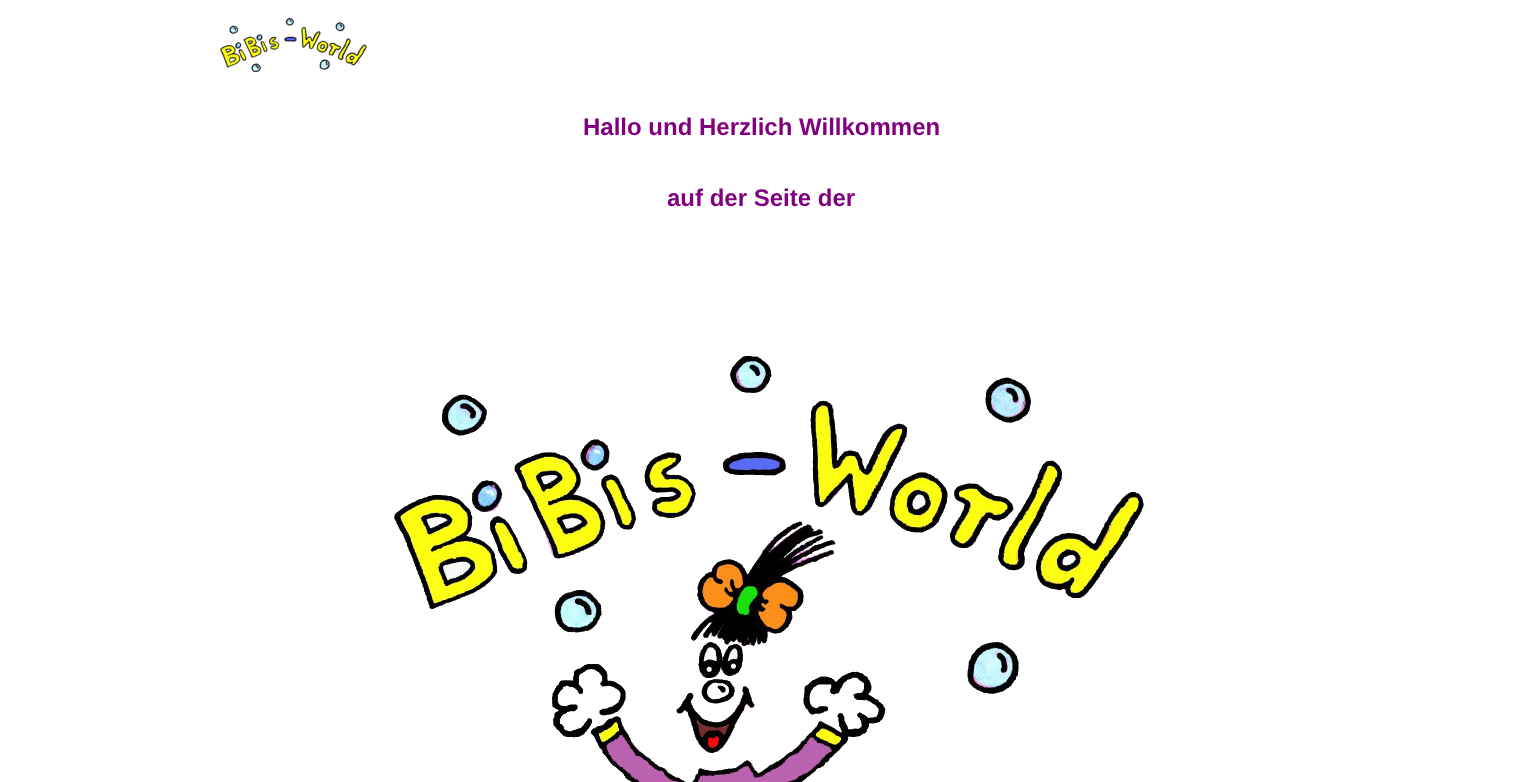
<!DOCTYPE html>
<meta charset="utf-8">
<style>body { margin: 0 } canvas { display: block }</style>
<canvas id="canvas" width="1523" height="782"></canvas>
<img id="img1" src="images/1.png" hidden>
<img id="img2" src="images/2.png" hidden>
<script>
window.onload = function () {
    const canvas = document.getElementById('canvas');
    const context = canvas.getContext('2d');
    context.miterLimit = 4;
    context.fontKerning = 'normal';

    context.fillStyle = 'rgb(255, 255, 255)';
    context.fillRect(0, 0, 1523, 782);
    context.drawImage(document.getElementById('img1'), 220, 18, 147, 54);
    context.drawImage(document.getElementById('img2'), 394, 356, 750, 426);
    context.font = 'bold 24px Liberation Sans';
    context.fillStyle = 'rgb(128, 0, 128)';
    context.fillText('Hallo und Herzlich Willkommen', 583, 135);
    context.fillText('auf der Seite der', 667, 206);
};
</script>
